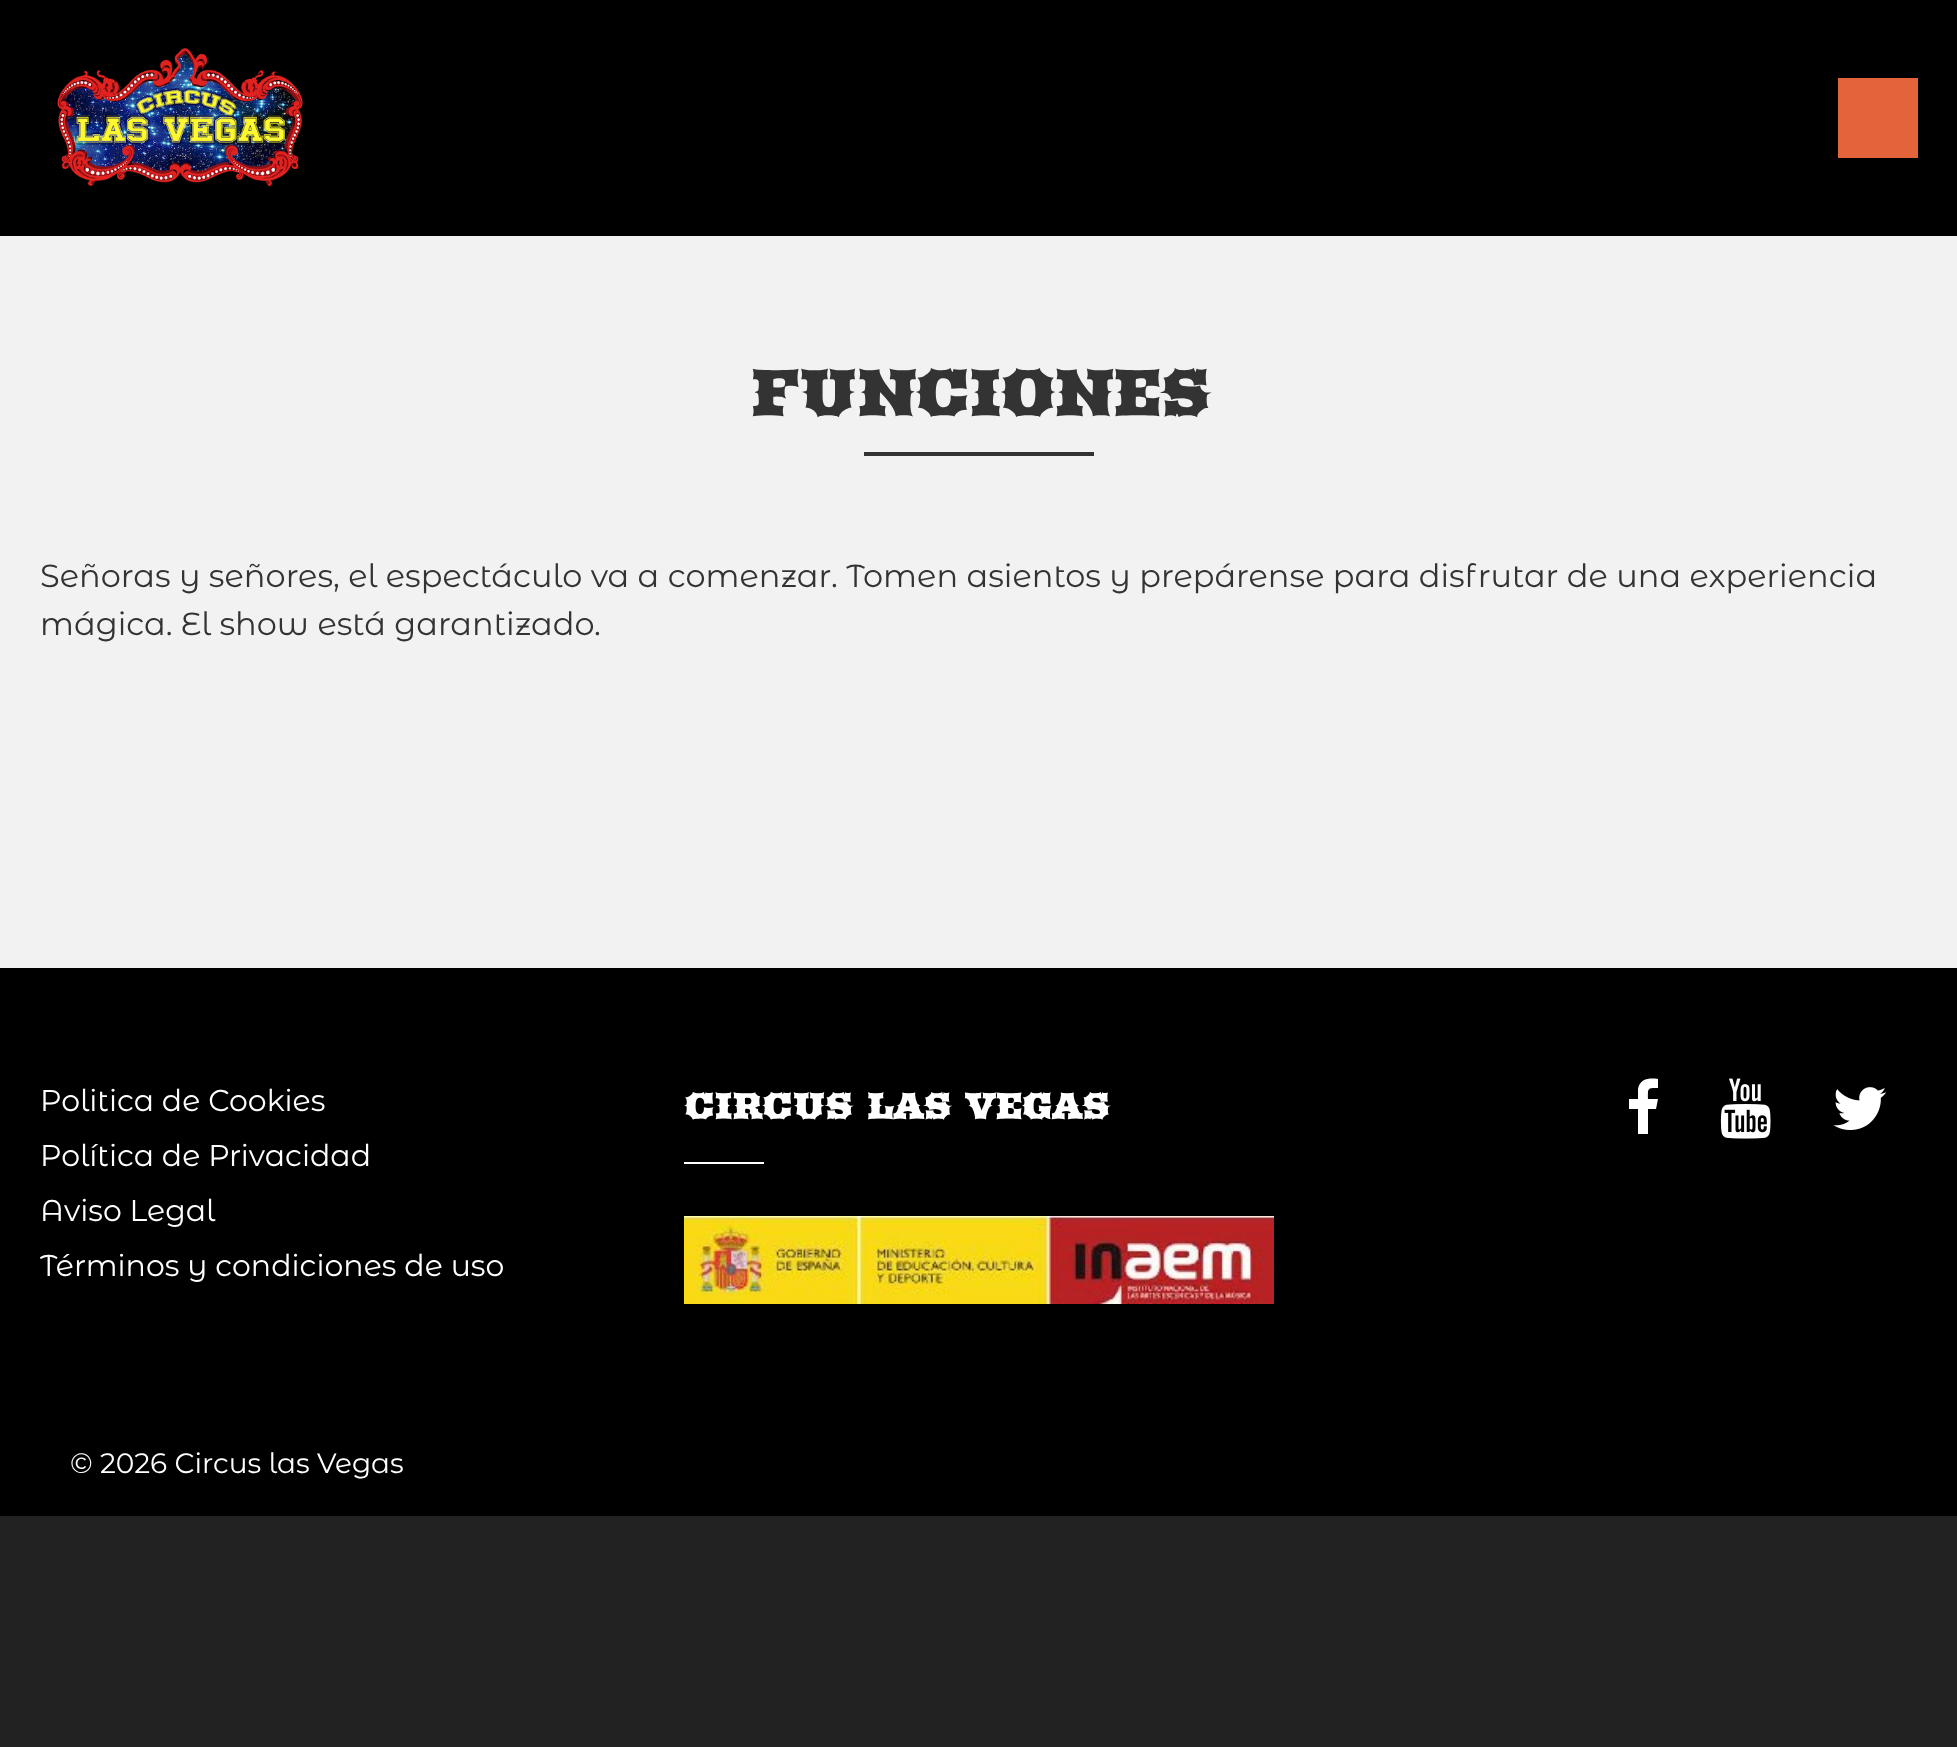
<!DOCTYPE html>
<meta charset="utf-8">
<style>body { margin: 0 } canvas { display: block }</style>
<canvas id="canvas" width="1957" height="1747"></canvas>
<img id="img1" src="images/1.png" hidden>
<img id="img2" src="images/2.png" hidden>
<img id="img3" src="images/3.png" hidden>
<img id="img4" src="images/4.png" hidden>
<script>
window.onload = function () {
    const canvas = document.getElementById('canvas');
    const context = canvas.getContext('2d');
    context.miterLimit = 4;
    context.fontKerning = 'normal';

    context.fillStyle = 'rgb(34, 34, 34)';
    context.fillRect(0, 0, 1957, 1747);
    context.fillStyle = 'rgb(0, 0, 0)';
    context.fillRect(0, 0, 1957, 236);
    context.drawImage(document.getElementById('img1'), 57, 48, 246, 139);
    context.fillStyle = 'rgb(227, 99, 59)';
    context.fillRect(1838, 78, 80, 80);
    context.fillStyle = 'rgb(242, 242, 242)';
    context.fillRect(0, 236, 1957, 732);
    context.fillStyle = 'rgb(51, 51, 51)';
    context.fillRect(864, 452, 230, 4);
    context.fillStyle = 'rgb(0, 0, 0)';
    context.fillRect(0, 968, 1957, 548);
    context.fillStyle = 'rgb(255, 255, 255)';
    context.fillRect(684, 1162, 80, 2);
    context.drawImage(document.getElementById('img2'), 684, 1216, 590, 88);
    context.beginPath();
    context.moveTo(1658, 1079);
    context.lineTo(1658, 1088);
    context.bezierCurveTo(1647, 1088, 1648, 1088, 1648, 1099);
    context.lineTo(1658, 1099);
    context.lineTo(1656, 1109);
    context.lineTo(1648, 1109);
    context.lineTo(1648, 1134);
    context.lineTo(1638, 1134);
    context.lineTo(1638, 1109);
    context.lineTo(1629, 1109);
    context.lineTo(1629, 1099);
    context.lineTo(1638, 1099);
    context.lineTo(1638, 1089);
    context.bezierCurveTo(1640, 1078, 1650, 1078, 1658, 1079);
    context.closePath();
    context.fill();
    context.drawImage(document.getElementById('img3'), 1720, 1078, 51, 61);
    context.drawImage(document.getElementById('img4'), 1833, 1087, 54, 43);
    context.font = 'bold 64px Arbutus';
    context.fillStyle = 'rgb(51, 51, 51)';
    context.fillText('FUNCIONES', 750, 416);
    context.font = '32px Montserrat Alternates';
    context.fillText('Señoras y señores, el espectáculo va a comenzar. Tomen asientos y prepárense para disfrutar de una experiencia', 40, 587);
    context.fillText('mágica. El show está garantizado.', 40, 635);
    context.font = '30px Montserrat Alternates';
    context.fillStyle = 'rgb(255, 255, 255)';
    context.fillText('Politica de Cookies', 40, 1111);
    context.fillText('Política de Privacidad', 40, 1166);
    context.fillText('Aviso Legal', 40, 1221);
    context.fillText('Términos y condiciones de uso', 40, 1276);
    context.font = 'bold 36px Arbutus';
    context.fillText('CIRCUS LAS VEGAS', 684, 1119);
    context.font = '28px Montserrat Alternates';
    context.fillText('© 2026 Circus las Vegas', 70, 1473);
};
</script>
